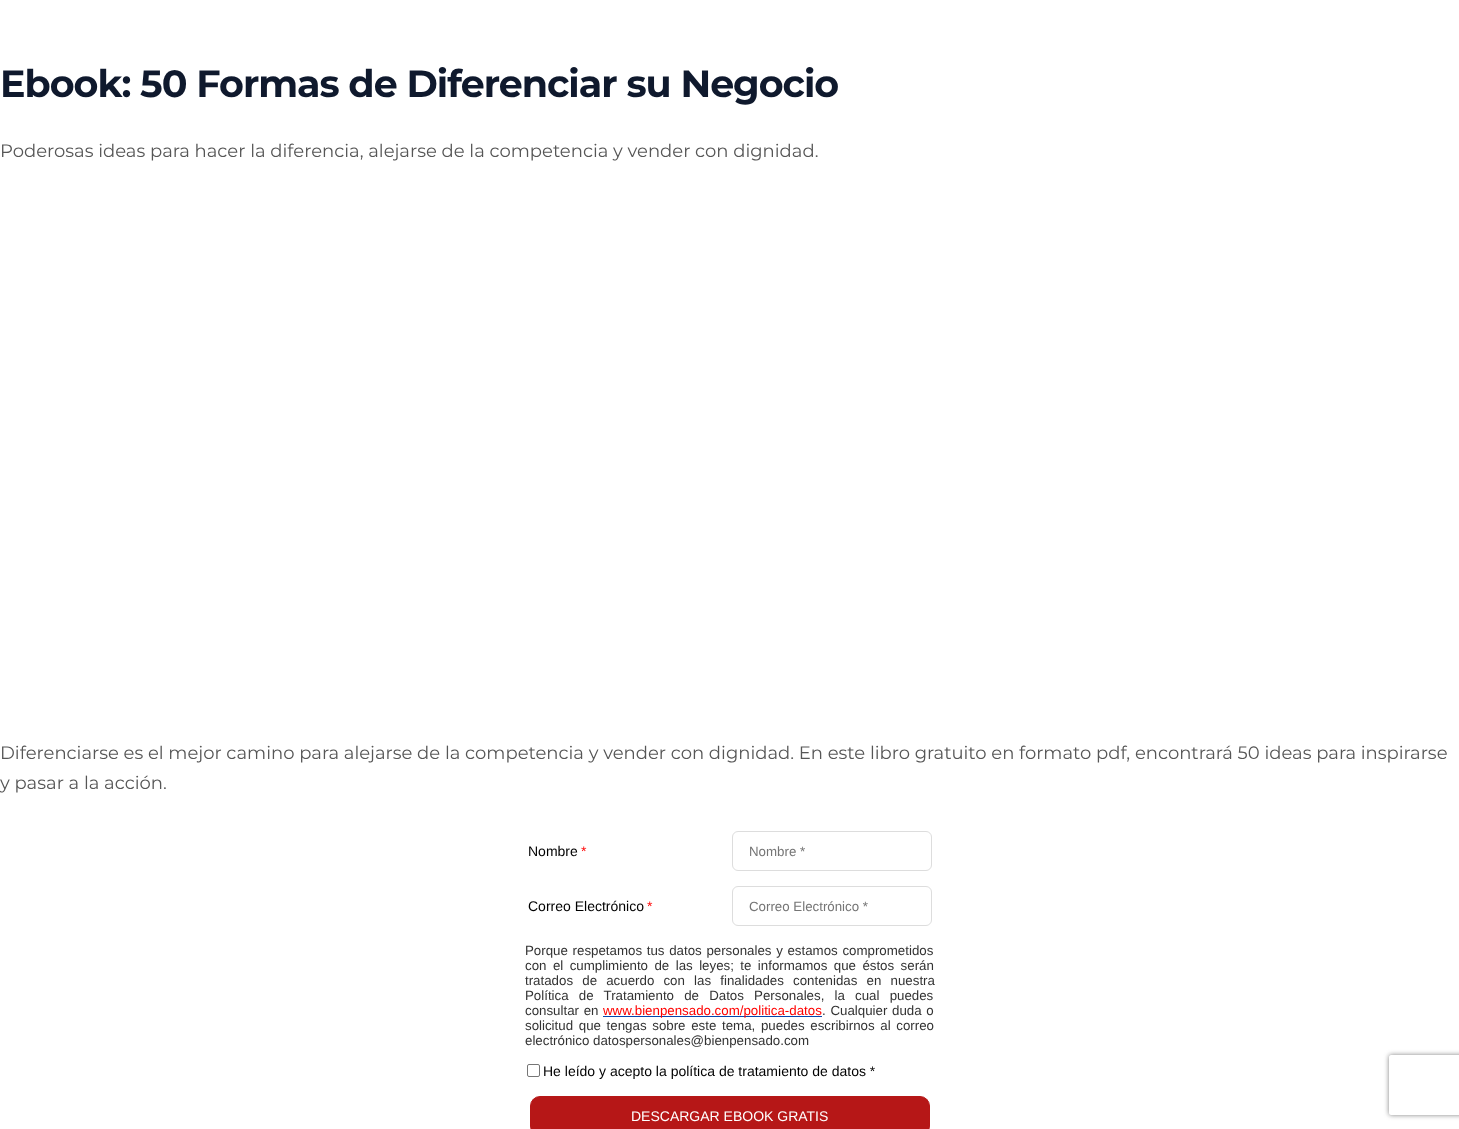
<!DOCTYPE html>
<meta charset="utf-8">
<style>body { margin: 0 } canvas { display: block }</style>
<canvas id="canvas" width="1459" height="1129"></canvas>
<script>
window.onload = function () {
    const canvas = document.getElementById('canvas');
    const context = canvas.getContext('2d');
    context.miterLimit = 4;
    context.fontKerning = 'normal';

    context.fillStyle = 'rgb(255, 255, 255)';
    context.fillRect(0, 0, 1459, 1129);
    context.beginPath();
    context.roundRect(732.5, 831.5, 199, 39, 5.5);
    context.strokeStyle = 'rgb(221, 221, 221)';
    context.stroke();
    context.beginPath();
    context.roundRect(732.5, 886.5, 199, 39, 5.5);
    context.stroke();
    context.fillStyle = 'rgb(6, 69, 173)';
    context.fillRect(603, 1016, 219, 1);
    context.beginPath();
    context.roundRect(527.5, 1064.5, 12, 12, 1.5);
    context.strokeStyle = 'rgb(118, 118, 118)';
    context.stroke();
    context.fillStyle = 'rgb(182, 23, 23)';
    context.beginPath();
    context.roundRect(530.5, 1096.5, 399, 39, 9.5);
    context.fill();
    context.strokeStyle = 'rgb(182, 23, 23)';
    context.stroke();
    context.save();
    context.beginPath();
    context.moveTo(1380, 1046);
    context.lineTo(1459, 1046);
    context.lineTo(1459, 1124);
    context.lineTo(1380, 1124);
    context.closePath();
    context.moveTo(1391, 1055);
    context.lineTo(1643, 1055);
    context.bezierCurveTo(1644, 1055, 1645, 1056, 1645, 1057);
    context.lineTo(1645, 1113);
    context.bezierCurveTo(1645, 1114, 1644, 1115, 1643, 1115);
    context.lineTo(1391, 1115);
    context.bezierCurveTo(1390, 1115, 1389, 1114, 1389, 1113);
    context.lineTo(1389, 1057);
    context.bezierCurveTo(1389, 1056, 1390, 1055, 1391, 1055);
    context.closePath();
    context.clip('evenodd');
    context.fillStyle = 'rgb(128, 128, 128)';
    context.filter = 'blur(2.5px)';
    context.beginPath();
    context.roundRect(1389, 1055, 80, 60, 2);
    context.fill();
    context.filter = 'none';
    context.restore();
    context.letterSpacing = '-1px';
    context.font = 'bold 38px Montserrat';
    context.fillStyle = 'rgb(15, 25, 45)';
    context.fillText('Ebook: 50 Formas de Diferenciar su Negocio', 0, 97);
    context.letterSpacing = '0px';
    context.font = '18px Montserrat';
    context.fillStyle = 'rgb(86, 86, 86)';
    context.fillText('Poderosas ideas para hacer la diferencia, alejarse de la competencia y vender con dignidad.', 0, 157);
    context.fillText('Diferenciarse es el mejor camino para alejarse de la competencia y vender con dignidad. En este libro gratuito en formato pdf, encontrará 50 ideas para inspirarse', 0, 759);
    context.fillText('y pasar a la acción.', 0, 789);
    context.font = '14px Liberation Sans';
    context.fillStyle = 'rgb(0, 0, 0)';
    context.fillText('Nombre', 528, 856);
    context.fillStyle = 'rgb(255, 0, 0)';
    context.fillText('*', 581, 856);
    context.font = '13.3px Liberation Sans';
    context.fillStyle = 'rgb(117, 117, 117)';
    context.fillText('Nombre *', 749, 856);
    context.font = '14px Liberation Sans';
    context.fillStyle = 'rgb(0, 0, 0)';
    context.fillText('Correo Electrónico', 528, 911);
    context.fillStyle = 'rgb(255, 0, 0)';
    context.fillText('*', 647, 911);
    context.font = '13.3px Liberation Sans';
    context.fillStyle = 'rgb(117, 117, 117)';
    context.fillText('Correo Electrónico *', 749, 911);
    context.wordSpacing = '1px';
    context.fillStyle = 'rgb(51, 51, 51)';
    context.fillText('Porque respetamos tus datos personales y estamos comprometidos', 525, 955);
    context.wordSpacing = '2.75px';
    context.fillText('con el cumplimiento de las leyes; te informamos que éstos serán', 525, 970);
    context.wordSpacing = '5.5px';
    context.fillText('tratados de acuerdo con las finalidades contenidas en nuestra', 525, 985);
    context.wordSpacing = '6.5px';
    context.fillText('Política de Tratamiento de Datos Personales, la cual puedes', 525, 1000);
    context.wordSpacing = '1px';
    context.fillText('consultar en', 525, 1015);
    context.wordSpacing = '0px';
    context.fillStyle = 'rgb(255, 0, 0)';
    context.fillText('www.bienpensado.com/politica-datos', 603, 1015);
    context.wordSpacing = '1px';
    context.fillStyle = 'rgb(51, 51, 51)';
    context.fillText('. Cualquier duda o', 822, 1015);
    context.wordSpacing = '2px';
    context.fillText('solicitud que tengas sobre este tema, puedes escribirnos al correo', 525, 1030);
    context.wordSpacing = '0px';
    context.fillText('electrónico datospersonales@bienpensado.com', 525, 1045);
    context.font = '14px Liberation Sans';
    context.fillStyle = 'rgb(0, 0, 0)';
    context.fillText('He leído y acepto la política de tratamiento de datos *', 543, 1076);
    context.fillStyle = 'rgb(255, 255, 255)';
    context.fillText('DESCARGAR EBOOK GRATIS', 631, 1121);
};
</script>
